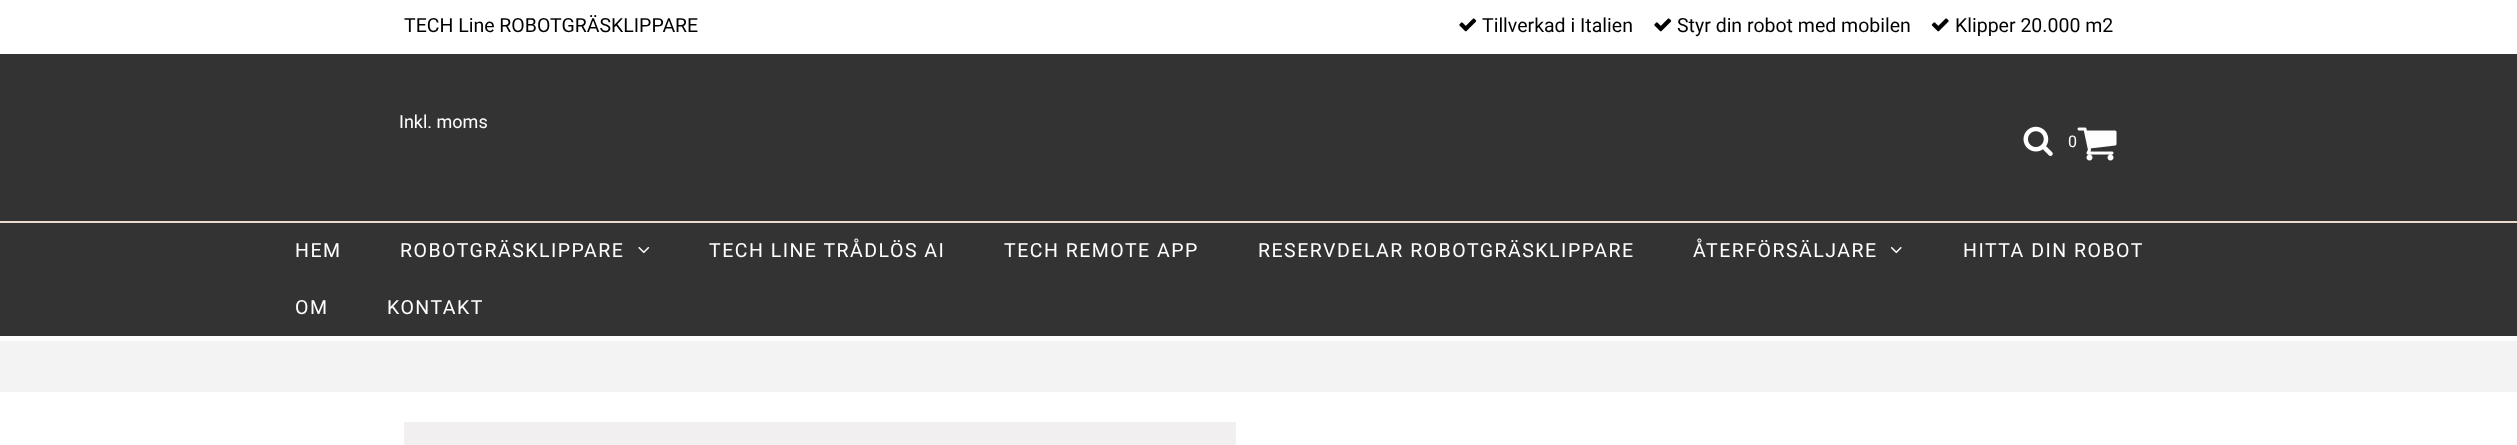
<!DOCTYPE html>
<meta charset="utf-8">
<style>body { margin: 0 } canvas { display: block }</style>
<canvas id="canvas" width="2517" height="445"></canvas>
<img id="img1" src="images/1.png" hidden>
<img id="img2" src="images/2.png" hidden>
<img id="img3" src="images/3.png" hidden>
<img id="img4" src="images/4.png" hidden>
<img id="img5" src="images/5.png" hidden>
<img id="img6" src="images/6.png" hidden>
<script>
window.onload = function () {
    const canvas = document.getElementById('canvas');
    const context = canvas.getContext('2d');
    context.miterLimit = 4;
    context.fontKerning = 'normal';

    context.fillStyle = 'rgb(255, 255, 255)';
    context.fillRect(0, 0, 2517, 445);
    context.fillStyle = 'rgb(51, 51, 51)';
    context.fillRect(0, 54, 2517, 282);
    context.drawImage(document.getElementById('img1'), 1459, 18, 18, 14);
    context.drawImage(document.getElementById('img1'), 1654, 18, 18, 14);
    context.drawImage(document.getElementById('img2'), 1931, 18, 18, 14);
    context.drawImage(document.getElementById('img3'), 2023, 126, 30, 30);
    context.drawImage(document.getElementById('img4'), 2077, 127, 40, 34);
    context.fillStyle = 'rgb(237, 219, 204)';
    context.fillRect(0, 221, 2517, 2);
    context.drawImage(document.getElementById('img5'), 638, 246, 12, 8);
    context.drawImage(document.getElementById('img6'), 1890, 246, 12, 8);
    context.fillStyle = 'rgb(243, 243, 243)';
    context.fillRect(0, 341, 2517, 51);
    context.fillStyle = 'rgb(241, 239, 240)';
    context.fillRect(404, 422, 832, 23);
    context.font = '19.5px Roboto';
    context.fillStyle = 'rgb(0, 0, 0)';
    context.fillText('TECH Line ROBOTGRÄSKLIPPARE', 404, 32);
    context.fillText('Tillverkad i Italien', 1482, 32);
    context.fillText('Styr din robot med mobilen', 1677, 32);
    context.fillText('Klipper 20.000 m2', 1955, 32);
    context.font = '18px Roboto';
    context.fillStyle = 'rgb(255, 255, 255)';
    context.fillText('Inkl. moms', 399, 128);
    context.font = '16px Roboto';
    context.fillText('0', 2068, 147);
    context.letterSpacing = '1.5px';
    context.font = '19.5px Roboto';
    context.fillText('HEM', 295, 257);
    context.fillText('ROBOTGRÄSKLIPPARE', 400, 257);
    context.fillText('TECH LINE TRÅDLÖS AI', 709, 257);
    context.fillText('TECH REMOTE APP', 1004, 257);
    context.fillText('RESERVDELAR ROBOTGRÄSKLIPPARE', 1258, 257);
    context.fillText('ÅTERFÖRSÄLJARE', 1693, 257);
    context.fillText('HITTA DIN ROBOT', 1963, 257);
    context.fillText('OM', 295, 314);
    context.fillText('KONTAKT', 387, 314);
};
</script>
